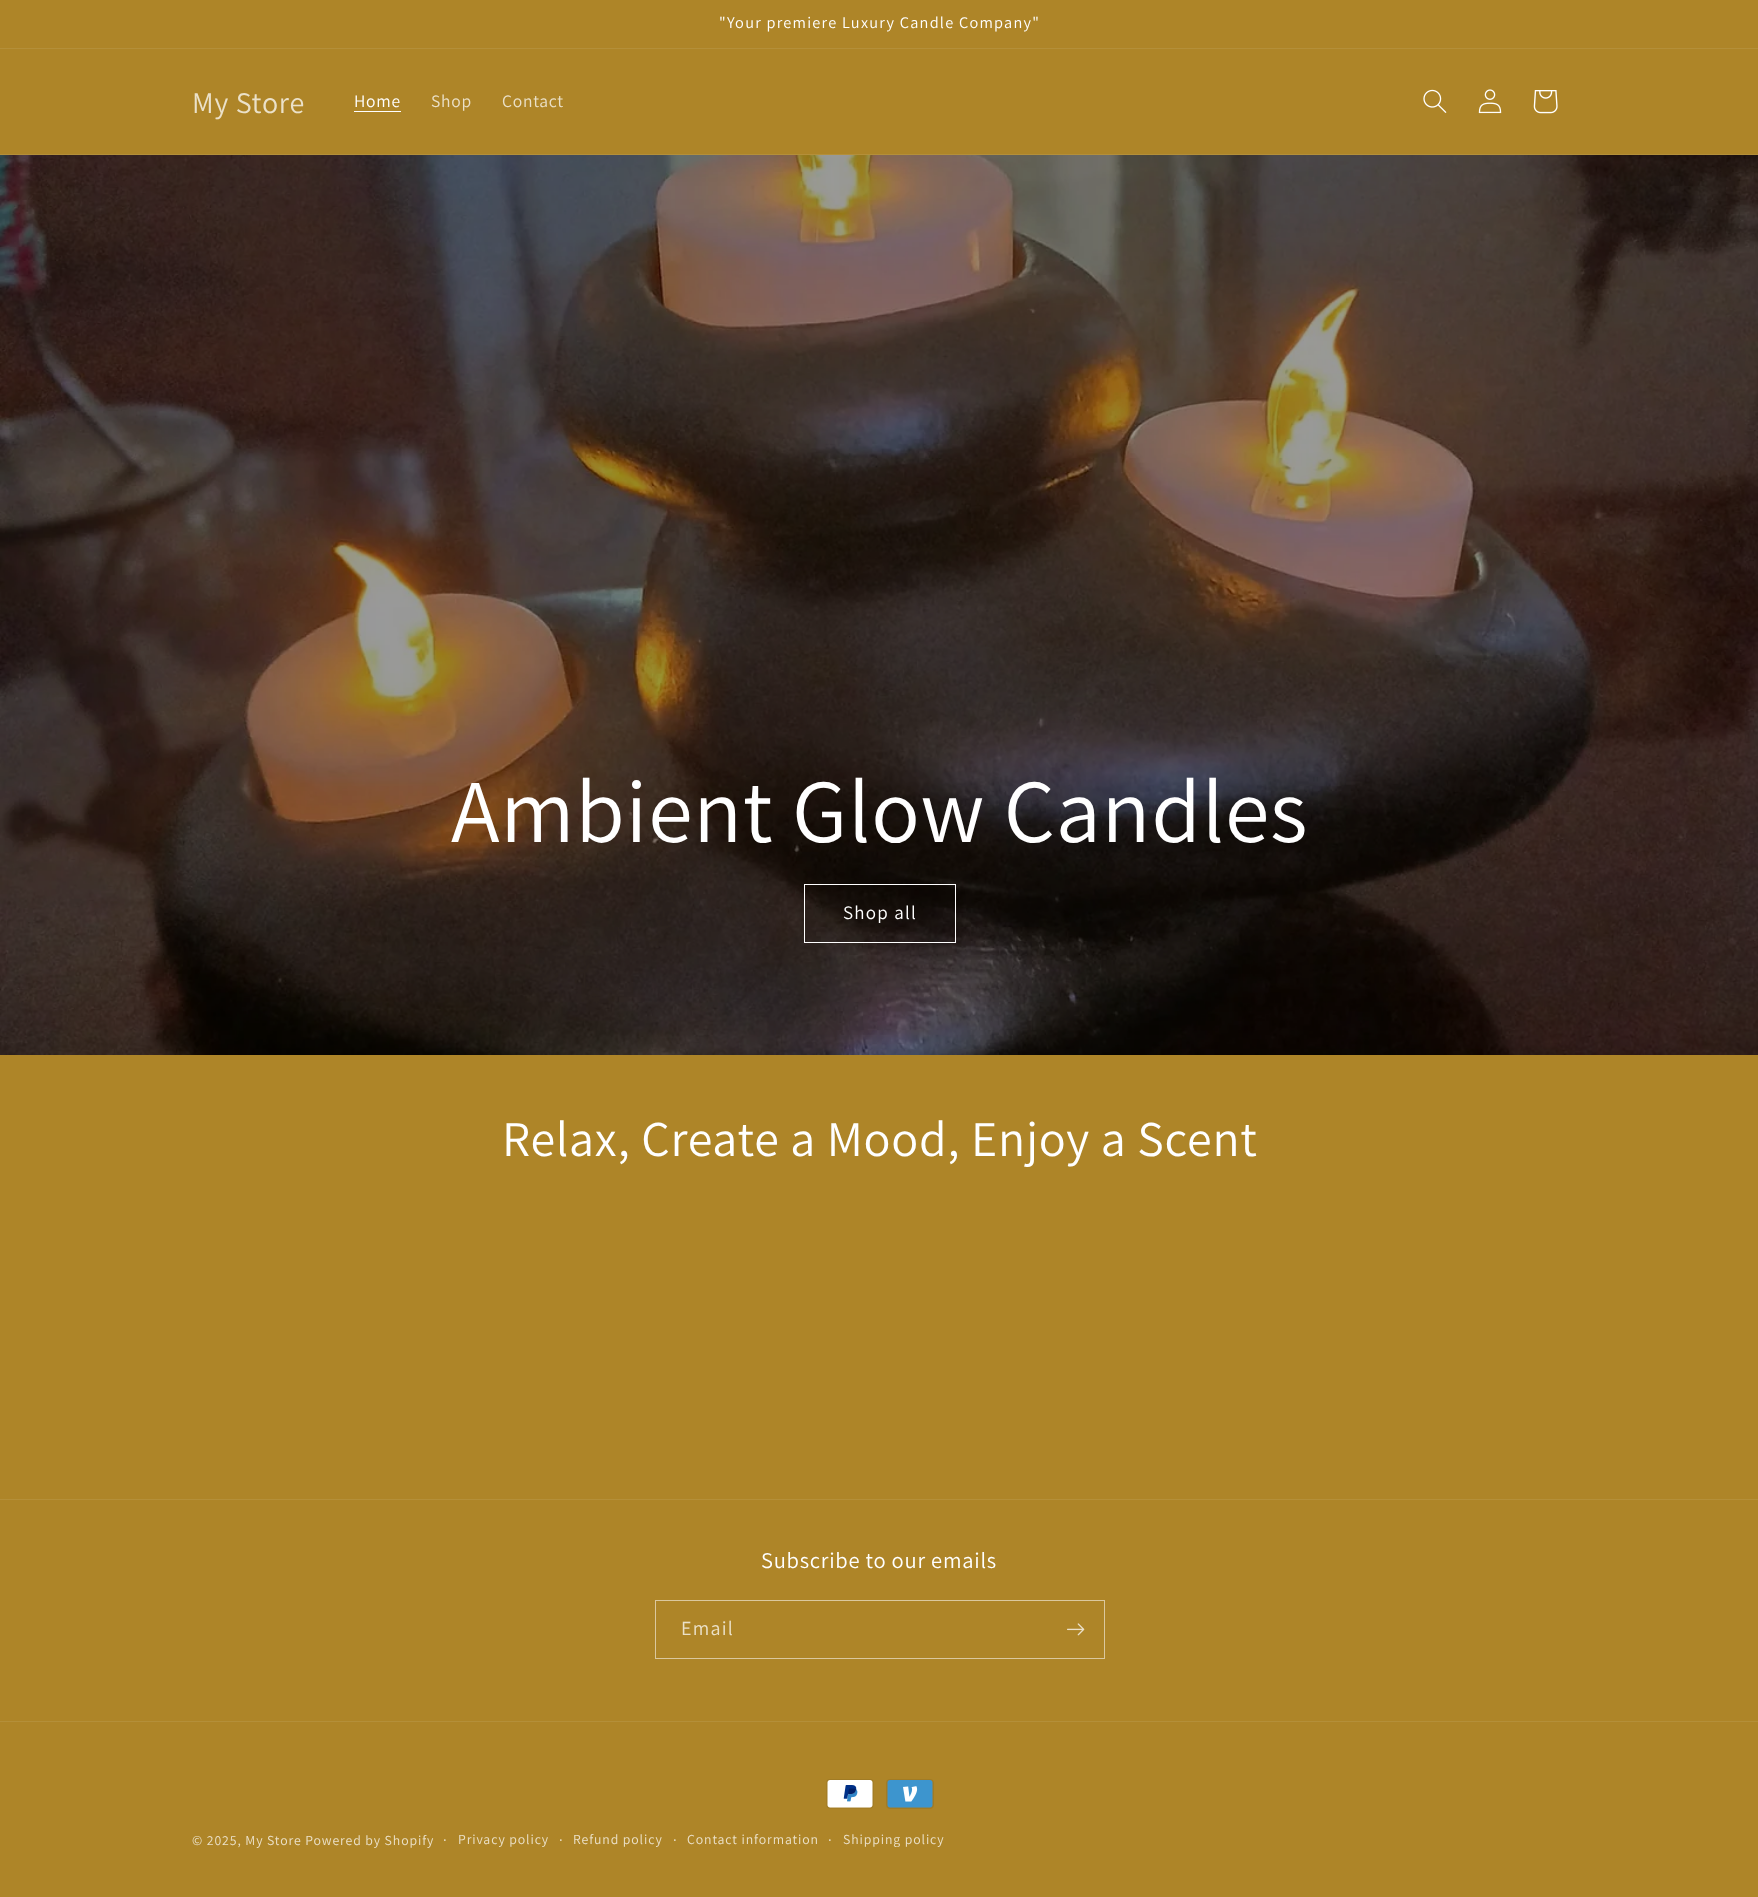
<!DOCTYPE html>
<meta charset="utf-8">
<style>body { margin: 0 } canvas { display: block }</style>
<canvas id="canvas" width="1758" height="1897"></canvas>
<img id="img1" src="images/1.png" hidden>
<img id="img2" src="images/2.png" hidden>
<img id="img3" src="images/3.png" hidden>
<img id="img4" src="images/4.png" hidden>
<img id="img5" src="images/5.png" hidden>
<img id="img6" src="images/6.png" hidden>
<img id="img7" src="images/7.png" hidden>
<script>
window.onload = function () {
    const canvas = document.getElementById('canvas');
    const context = canvas.getContext('2d');
    context.miterLimit = 4;
    context.fontKerning = 'normal';

    context.fillStyle = 'rgb(174, 133, 40)';
    context.fillRect(0, 0, 1758, 1897);
    context.fillStyle = 'rgb(180, 143, 57)';
    context.fillRect(0, 48, 1758, 1);
    context.fillRect(0, 154, 1758, 1);
    context.fillStyle = 'rgb(255, 255, 255)';
    context.fillRect(354, 111, 47, 1);
    context.drawImage(document.getElementById('img1'), 1423, 89, 24, 24);
    context.drawImage(document.getElementById('img2'), 1478, 89, 24, 25);
    context.drawImage(document.getElementById('img3'), 1533, 90, 25, 24);
    context.drawImage(document.getElementById('img4'), 0, 155, 1758, 900);
    context.strokeStyle = 'rgb(255, 255, 255)';
    context.strokeRect(804.5, 884.5, 151, 58);
    context.fillStyle = 'rgb(180, 143, 57)';
    context.fillRect(0, 1499, 1758, 1);
    context.strokeStyle = 'rgb(219, 200, 158)';
    context.strokeRect(655.5, 1600.5, 449, 58);
    context.drawImage(document.getElementById('img5'), 1067, 1623, 18, 13);
    context.fillRect(0, 1721, 1758, 1);
    context.drawImage(document.getElementById('img6'), 826, 1779, 48, 30);
    context.drawImage(document.getElementById('img7'), 886, 1779, 48, 30);
    context.letterSpacing = '1.25px';
    context.font = '16.25px Assistant';
    context.fillStyle = 'rgb(255, 255, 255)';
    context.fillText('"Your premiere Luxury Candle Company"', 719, 28);
    context.letterSpacing = '0.75px';
    context.font = '30px Assistant';
    context.fillStyle = 'rgb(235, 225, 201)';
    context.fillText('My Store', 192, 113);
    context.font = '17.5px Assistant';
    context.fillStyle = 'rgb(255, 255, 255)';
    context.fillText('Home', 354, 107);
    context.fillStyle = 'rgb(235, 225, 201)';
    context.fillText('Shop', 431, 107);
    context.fillText('Contact', 502, 107);
    context.font = '90px Assistant';
    context.fillStyle = 'rgb(255, 255, 255)';
    context.fillText('Ambient Glow Candles', 451, 842);
    context.letterSpacing = '1.25px';
    context.font = '19px Assistant';
    context.fillText('Shop all', 843, 919);
    context.letterSpacing = '0.75px';
    context.font = '50px Assistant';
    context.fillText('Relax, Create a Mood, Enjoy a Scent', 502, 1156);
    context.font = '22.5px Assistant';
    context.fillText('Subscribe to our emails', 761, 1568);
    context.letterSpacing = '1.25px';
    context.font = '20px Assistant';
    context.fillStyle = 'rgb(235, 225, 201)';
    context.fillText('Email', 681, 1635);
    context.letterSpacing = '0.9px';
    context.font = '13.75px Assistant';
    context.fillText('© 2025, My Store Powered by Shopify', 192, 1845);
    context.font = '15px Assistant';
    context.fillText('·', 443, 1845);
    context.font = '13.75px Assistant';
    context.fillText('Privacy policy', 458, 1844);
    context.font = '15px Assistant';
    context.fillText('·', 559, 1845);
    context.font = '13.75px Assistant';
    context.fillText('Refund policy', 573, 1844);
    context.font = '15px Assistant';
    context.fillText('·', 673, 1845);
    context.font = '13.75px Assistant';
    context.fillText('Contact information', 687, 1844);
    context.font = '15px Assistant';
    context.fillText('·', 828, 1845);
    context.font = '13.75px Assistant';
    context.fillText('Shipping policy', 843, 1844);
};
</script>
